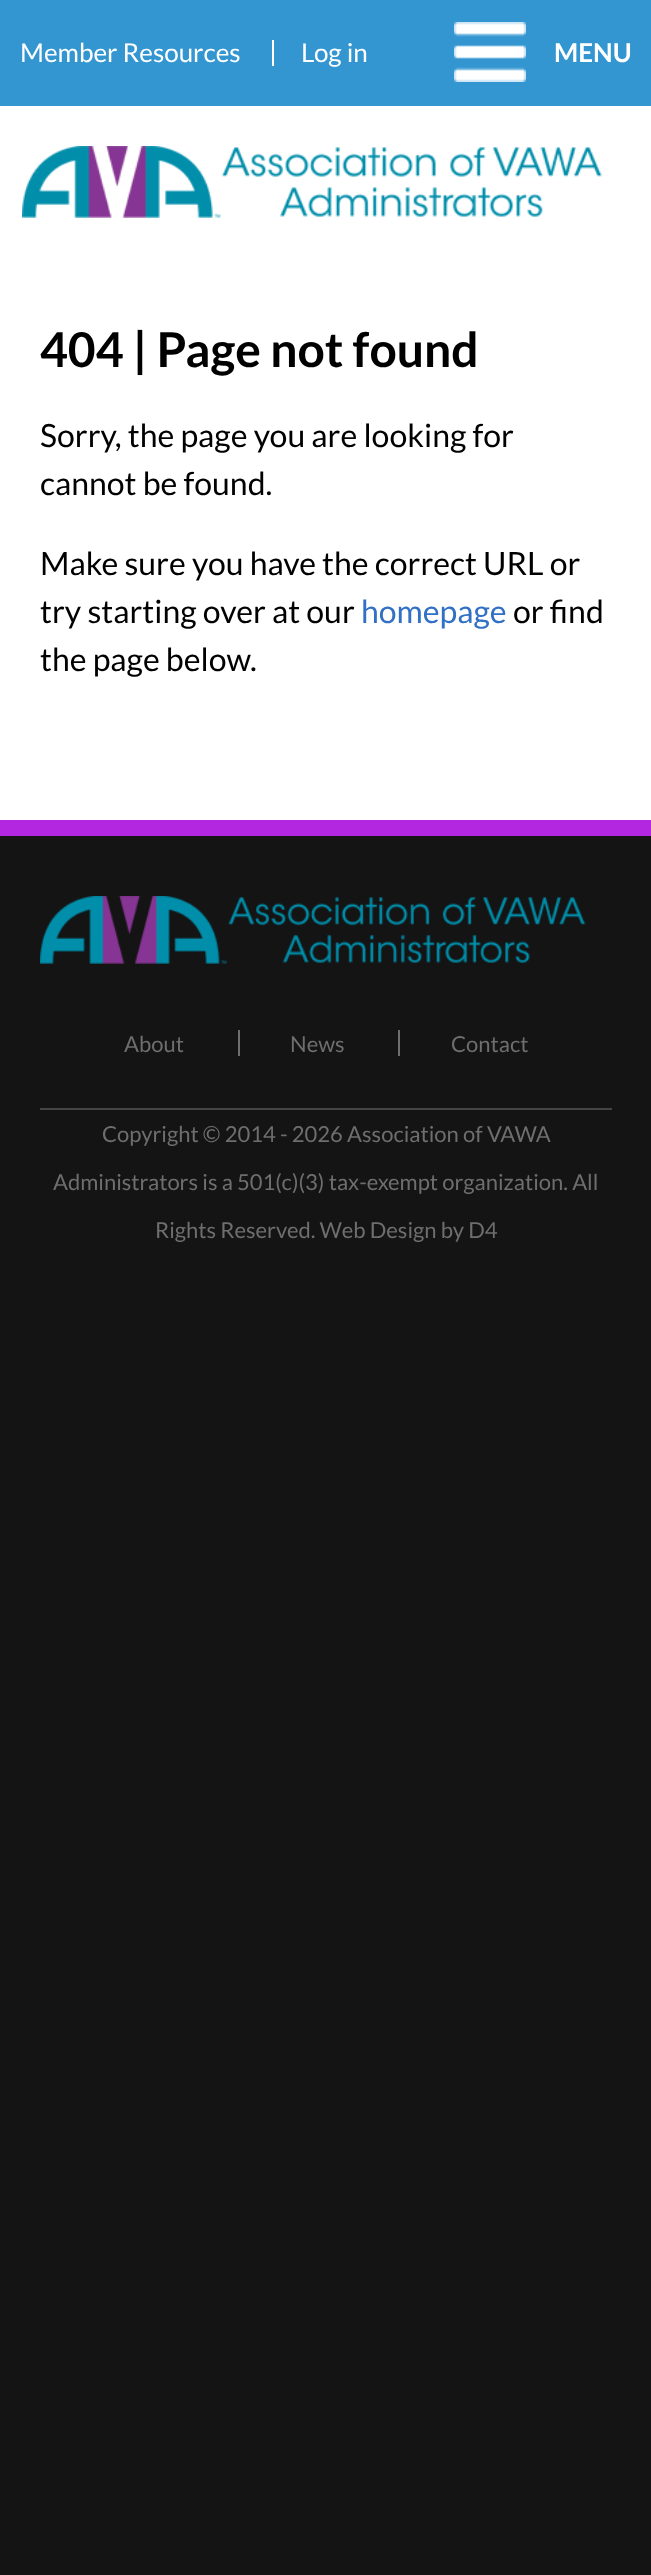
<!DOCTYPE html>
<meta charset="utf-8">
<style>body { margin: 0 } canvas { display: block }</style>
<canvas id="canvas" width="651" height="2575"></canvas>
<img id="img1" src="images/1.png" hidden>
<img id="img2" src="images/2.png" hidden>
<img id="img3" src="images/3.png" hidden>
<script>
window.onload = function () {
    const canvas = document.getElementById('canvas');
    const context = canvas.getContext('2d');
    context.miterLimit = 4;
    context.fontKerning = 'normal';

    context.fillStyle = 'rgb(20, 20, 20)';
    context.fillRect(0, 0, 651, 2575);
    context.fillStyle = 'rgb(51, 150, 209)';
    context.fillRect(0, 0, 651, 106);
    context.fillStyle = 'rgb(255, 255, 255)';
    context.fillRect(272, 40, 2, 26);
    context.drawImage(document.getElementById('img1'), 454, 22, 72, 60);
    context.fillRect(0, 106, 651, 714);
    context.drawImage(document.getElementById('img2'), 22, 146, 580, 72);
    context.fillStyle = 'rgb(179, 39, 225)';
    context.fillRect(0, 820, 651, 16);
    context.drawImage(document.getElementById('img3'), 40, 896, 546, 68);
    context.fillStyle = 'rgb(110, 110, 110)';
    context.fillRect(238, 1030, 2, 26);
    context.fillRect(398, 1030, 2, 26);
    context.fillStyle = 'rgb(68, 68, 68)';
    context.fillRect(40, 1108, 572, 2);
    context.font = '26px Lato';
    context.fillStyle = 'rgb(255, 255, 255)';
    context.fillText('Member Resources', 20, 62);
    context.fillText('Log in', 301, 62);
    context.font = 'bold 26px Lato';
    context.fillText('MENU', 554, 62);
    context.font = 'bold 48px Lato';
    context.fillStyle = 'rgb(0, 0, 0)';
    context.fillText('404 | Page not found', 40, 367);
    context.font = '32px Lato';
    context.fillText('Sorry, the page you are looking for', 40, 447);
    context.fillText('cannot be found.', 40, 495);
    context.fillText('Make sure you have the correct URL or', 40, 575);
    context.fillText('try starting over at our', 40, 623);
    context.fillStyle = 'rgb(49, 112, 196)';
    context.fillText('homepage', 361, 623);
    context.fillStyle = 'rgb(0, 0, 0)';
    context.fillText('or find', 513, 623);
    context.fillText('the page below.', 40, 671);
    context.font = '22px Lato';
    context.fillStyle = 'rgb(110, 110, 110)';
    context.fillText('About', 124, 1052);
    context.fillText('News', 290, 1052);
    context.fillText('Contact', 451, 1052);
    context.fillText('Copyright © 2014 - 2026 Association of VAWA', 102, 1142);
    context.fillText('Administrators is a 501(c)(3) tax-exempt organization. All', 53, 1190);
    context.fillText('Rights Reserved. Web Design by D4', 155, 1238);
};
</script>
